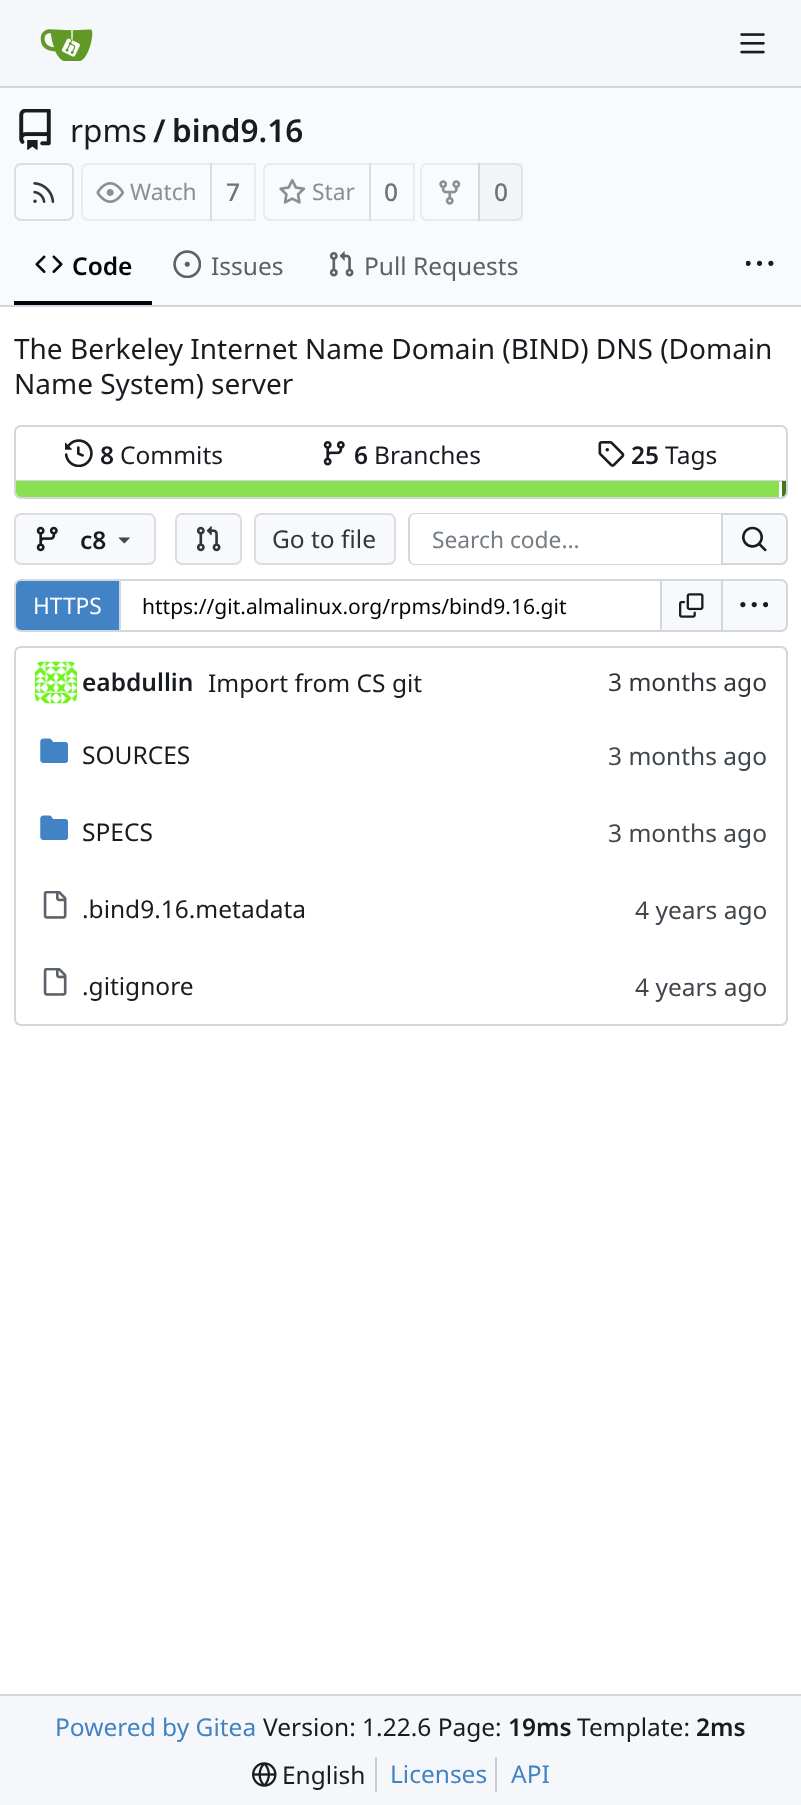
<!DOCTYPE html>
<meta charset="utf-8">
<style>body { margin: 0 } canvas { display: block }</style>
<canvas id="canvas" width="801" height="1805"></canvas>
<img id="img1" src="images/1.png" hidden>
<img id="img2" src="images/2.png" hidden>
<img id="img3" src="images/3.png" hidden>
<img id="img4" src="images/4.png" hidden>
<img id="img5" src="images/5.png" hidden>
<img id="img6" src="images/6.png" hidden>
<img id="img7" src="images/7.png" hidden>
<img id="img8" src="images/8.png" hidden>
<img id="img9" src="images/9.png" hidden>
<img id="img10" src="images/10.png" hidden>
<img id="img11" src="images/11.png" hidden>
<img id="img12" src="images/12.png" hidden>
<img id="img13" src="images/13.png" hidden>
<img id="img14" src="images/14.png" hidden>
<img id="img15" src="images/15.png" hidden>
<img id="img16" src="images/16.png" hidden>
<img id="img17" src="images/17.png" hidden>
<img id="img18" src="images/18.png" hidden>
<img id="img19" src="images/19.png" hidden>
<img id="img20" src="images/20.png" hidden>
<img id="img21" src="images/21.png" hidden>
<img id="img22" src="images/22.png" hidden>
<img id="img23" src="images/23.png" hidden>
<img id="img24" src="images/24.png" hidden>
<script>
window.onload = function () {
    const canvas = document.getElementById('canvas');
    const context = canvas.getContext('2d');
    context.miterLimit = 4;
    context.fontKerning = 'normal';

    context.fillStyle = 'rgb(255, 255, 255)';
    context.fillRect(0, 0, 801, 1805);
    context.fillStyle = 'rgb(246, 247, 250)';
    context.fillRect(0, 0, 801, 86);
    context.fillStyle = 'rgb(208, 215, 222)';
    context.fillRect(0, 86, 801, 2);
    context.drawImage(document.getElementById('img1'), 40, 29, 53, 32);
    context.drawImage(document.getElementById('img2'), 740, 33, 25, 21);
    context.fillStyle = 'rgb(249, 250, 251)';
    context.fillRect(0, 88, 801, 217);
    context.drawImage(document.getElementById('img3'), 19, 109, 32, 41);
    context.beginPath();
    context.roundRect(15, 164, 58, 56, 6);
    context.strokeStyle = 'rgb(221, 222, 225)';
    context.lineWidth = 2;
    context.stroke();
    context.drawImage(document.getElementById('img4'), 33, 182, 22, 21);
    context.beginPath();
    context.roundRect(82, 164, 129, 56, [6, 0, 0, 6]);
    context.strokeStyle = 'rgb(233, 234, 237)';
    context.stroke();
    context.drawImage(document.getElementById('img5'), 96, 182, 28, 21);
    context.strokeStyle = 'rgba(0, 0, 23, 0.06)';
    context.strokeRect(211, 164, 44, 56);
    context.beginPath();
    context.roundRect(264, 164, 106, 56, [6, 0, 0, 6]);
    context.strokeStyle = 'rgb(233, 234, 237)';
    context.stroke();
    context.drawImage(document.getElementById('img6'), 279, 179, 27, 25);
    context.strokeStyle = 'rgba(0, 0, 23, 0.06)';
    context.strokeRect(370, 164, 44, 56);
    context.beginPath();
    context.roundRect(421, 164, 58, 56, [6, 0, 0, 6]);
    context.strokeStyle = 'rgb(233, 234, 237)';
    context.stroke();
    context.drawImage(document.getElementById('img7'), 439, 180, 22, 25);
    context.fillStyle = 'rgba(112, 113, 113, 0.04)';
    context.fillRect(478, 163, 45, 58);
    context.beginPath();
    context.roundRect(479, 164, 43, 56, [0, 6, 6, 0]);
    context.strokeStyle = 'rgba(112, 113, 126, 0.11)';
    context.stroke();
    context.fillStyle = 'rgb(1, 5, 10)';
    context.fillRect(14, 301, 138, 4);
    context.drawImage(document.getElementById('img8'), 35, 255, 28, 18);
    context.drawImage(document.getElementById('img9'), 173, 250, 28, 28);
    context.drawImage(document.getElementById('img10'), 329, 251, 25, 26);
    context.drawImage(document.getElementById('img11'), 746, 260, 28, 6);
    context.fillStyle = 'rgb(208, 215, 222)';
    context.fillRect(0, 305, 801, 2);
    context.beginPath();
    context.roundRect(15, 426, 772, 72, 6);
    context.strokeStyle = 'rgb(208, 215, 222)';
    context.stroke();
    context.drawImage(document.getElementById('img12'), 65, 439, 28, 28);
    context.drawImage(document.getElementById('img13'), 323, 441, 22, 25);
    context.drawImage(document.getElementById('img14'), 598, 441, 27, 26);
    context.fillStyle = 'rgb(255, 255, 255)';
    context.beginPath();
    context.roundRect(16, 480, 770, 17, [0, 0, 5, 5]);
    context.fill();
    context.fillStyle = 'rgb(208, 215, 222)';
    context.fillRect(16, 480, 770, 2);
    context.fillStyle = 'rgb(137, 224, 81)';
    context.beginPath();
    context.roundRect(16, 481, 763, 16, [0, 0, 0, 5]);
    context.fill();
    context.save();
    context.beginPath();
    context.roundRect(16, 481, 770, 16, [0, 0, 5, 5]);
    context.clip();
    context.fillStyle = 'rgb(66, 120, 25)';
    context.fillRect(782, 481, 4, 16);
    context.restore();
    context.fillStyle = 'rgb(248, 249, 251)';
    context.beginPath();
    context.roundRect(14, 513, 142, 52, 7);
    context.fill();
    context.beginPath();
    context.roundRect(15, 514, 140, 50, 6);
    context.strokeStyle = 'rgba(0, 0, 23, 0.11)';
    context.stroke();
    context.drawImage(document.getElementById('img15'), 36, 526, 22, 26);
    context.drawImage(document.getElementById('img16'), 118, 537, 12, 7);
    context.beginPath();
    context.roundRect(175, 513, 67, 52, 7);
    context.fill();
    context.beginPath();
    context.roundRect(176, 514, 65, 50, 6);
    context.stroke();
    context.drawImage(document.getElementById('img17'), 196, 526, 25, 26);
    context.beginPath();
    context.roundRect(254, 513, 142, 52, 7);
    context.fill();
    context.beginPath();
    context.roundRect(255, 514, 140, 50, 6);
    context.stroke();
    context.fillStyle = 'rgb(208, 215, 222)';
    context.beginPath();
    context.moveTo(415, 513);
    context.lineTo(721, 513);
    context.lineTo(721, 565);
    context.lineTo(415, 565);
    context.bezierCurveTo(411, 565, 408, 562, 408, 558);
    context.lineTo(408, 520);
    context.bezierCurveTo(408, 516, 411, 513, 415, 513);
    context.closePath();
    context.moveTo(415, 514);
    context.lineTo(721, 514);
    context.lineTo(721, 564);
    context.lineTo(415, 564);
    context.bezierCurveTo(412, 564, 410, 561, 410, 558);
    context.lineTo(410, 520);
    context.bezierCurveTo(410, 517, 412, 514, 415, 514);
    context.closePath();
    context.fill('evenodd');
    context.fillStyle = 'rgb(248, 249, 251)';
    context.beginPath();
    context.roundRect(722, 514, 65, 50, [0, 6, 6, 0]);
    context.fill();
    context.strokeStyle = 'rgb(208, 215, 222)';
    context.stroke();
    context.drawImage(document.getElementById('img18'), 742, 526, 25, 26);
    context.fillStyle = 'rgb(65, 131, 196)';
    context.beginPath();
    context.roundRect(15, 580, 105, 51, [6, 0, 0, 6]);
    context.fill();
    context.stroke();
    context.fillStyle = 'rgb(208, 215, 222)';
    context.fillRect(119, 579, 541, 2);
    context.fillRect(119, 630, 541, 2);
    context.fillStyle = 'rgb(248, 249, 251)';
    context.beginPath();
    context.rect(661, 580, 61, 51);
    context.fill();
    context.stroke();
    context.drawImage(document.getElementById('img19'), 679, 593, 25, 25);
    context.beginPath();
    context.roundRect(722, 580, 65, 51, [0, 6, 6, 0]);
    context.fill();
    context.stroke();
    context.drawImage(document.getElementById('img20'), 740, 602, 28, 6);
    context.beginPath();
    context.roundRect(15, 647, 772, 378, 6);
    context.stroke();
    context.drawImage(document.getElementById('img21'), 35, 661, 42, 43);
    context.drawImage(document.getElementById('img22'), 40, 738, 28, 25);
    context.drawImage(document.getElementById('img22'), 40, 815, 28, 25);
    context.drawImage(document.getElementById('img23'), 43, 891, 24, 28);
    context.drawImage(document.getElementById('img23'), 43, 968, 24, 28);
    context.fillStyle = 'rgb(246, 247, 250)';
    context.fillRect(0, 1696, 801, 109);
    context.fillStyle = 'rgb(208, 215, 222)';
    context.fillRect(0, 1694, 801, 2);
    context.drawImage(document.getElementById('img24'), 252, 1762, 25, 25);
    context.fillStyle = 'rgb(199, 206, 213)';
    context.fillRect(375, 1757, 2, 35);
    context.fillRect(495, 1757, 2, 35);
    context.font = '31.5px Noto Sans';
    context.fillStyle = 'rgb(24, 28, 33)';
    context.fillText('rpms', 70, 142);
    context.font = '600 31.5px Noto Sans';
    context.fillText('/', 153, 142);
    context.fillText('bind9.16', 172, 142);
    context.font = '22.75px Noto Sans';
    context.fillStyle = 'rgb(138, 142, 145)';
    context.fillText('Watch', 130, 200);
    context.font = '500 24.5px Noto Sans';
    context.fillStyle = 'rgb(113, 115, 118)';
    context.fillText('7', 226, 201);
    context.font = '22.75px Noto Sans';
    context.fillStyle = 'rgb(138, 142, 145)';
    context.fillText('Star', 312, 200);
    context.font = '500 24.5px Noto Sans';
    context.fillStyle = 'rgb(113, 115, 118)';
    context.fillText('0', 384, 201);
    context.fillText('0', 494, 201);
    context.font = '600 24.5px Noto Sans';
    context.fillStyle = 'rgb(1, 5, 10)';
    context.fillText('Code', 72, 275);
    context.font = '24.5px Noto Sans';
    context.fillStyle = 'rgb(91, 97, 103)';
    context.fillText('Issues', 211, 275);
    context.fillText('Pull Requests', 364, 275);
    context.font = '28px Noto Sans';
    context.fillStyle = 'rgb(24, 28, 33)';
    context.fillText('The Berkeley Internet Name Domain (BIND) DNS (Domain', 14, 359);
    context.fillText('Name System) server', 14, 394);
    context.font = '600 24.5px Noto Sans';
    context.fillText('8', 100, 464);
    context.font = '24.5px Noto Sans';
    context.fillText('Commits', 120, 464);
    context.font = '600 24.5px Noto Sans';
    context.fillText('6', 354, 464);
    context.font = '24.5px Noto Sans';
    context.fillText('Branches', 374, 464);
    context.font = '600 24.5px Noto Sans';
    context.fillText('25', 631, 464);
    context.font = '24.5px Noto Sans';
    context.fillText('Tags', 665, 464);
    context.font = '600 24.5px Noto Sans';
    context.fillText('c8', 80, 549);
    context.font = '24.5px Noto Sans';
    context.fillStyle = 'rgb(48, 54, 59)';
    context.fillText('Go to file', 272, 548);
    context.font = '22.75px Noto Sans';
    context.fillStyle = 'rgb(116, 124, 132)';
    context.fillText('Search code...', 432, 548);
    context.fillStyle = 'rgb(255, 255, 255)';
    context.fillText('HTTPS', 33, 614);
    context.font = '21px Noto Sans';
    context.fillStyle = 'rgb(1, 5, 10)';
    context.fillText('https://git.almalinux.org/rpms/bind9.16.git', 142, 614);
    context.font = '600 24.5px Noto Sans';
    context.fillStyle = 'rgb(24, 28, 33)';
    context.fillText('eabdullin', 82, 691);
    context.font = '24.5px Noto Sans';
    context.fillText('Import from CS git', 208, 692);
    context.fillStyle = 'rgb(48, 54, 59)';
    context.fillText('3 months ago', 608, 691);
    context.fillStyle = 'rgb(24, 28, 33)';
    context.fillText('SOURCES', 82, 764);
    context.fillStyle = 'rgb(64, 71, 77)';
    context.fillText('3 months ago', 608, 765);
    context.fillStyle = 'rgb(24, 28, 33)';
    context.fillText('SPECS', 82, 841);
    context.fillStyle = 'rgb(64, 71, 77)';
    context.fillText('3 months ago', 608, 842);
    context.fillStyle = 'rgb(24, 28, 33)';
    context.fillText('.bind9.16.metadata', 82, 918);
    context.fillStyle = 'rgb(64, 71, 77)';
    context.fillText('4 years ago', 635, 919);
    context.fillStyle = 'rgb(24, 28, 33)';
    context.fillText('.gitignore', 82, 995);
    context.fillStyle = 'rgb(64, 71, 77)';
    context.fillText('4 years ago', 635, 996);
    context.fillStyle = 'rgb(65, 131, 196)';
    context.fillText('Powered by Gitea', 55, 1736);
    context.fillStyle = 'rgb(24, 28, 33)';
    context.fillText('Version: 1.22.6 Page:', 263, 1736);
    context.font = '600 24.5px Noto Sans';
    context.fillText('19ms', 508, 1736);
    context.font = '24.5px Noto Sans';
    context.fillText('Template:', 577, 1736);
    context.font = '600 24.5px Noto Sans';
    context.fillText('2ms', 696, 1736);
    context.font = '24.5px Noto Sans';
    context.fillText('English', 282, 1784);
    context.fillStyle = 'rgb(65, 131, 196)';
    context.fillText('Licenses', 390, 1783);
    context.fillText('API', 511, 1783);
};
</script>
